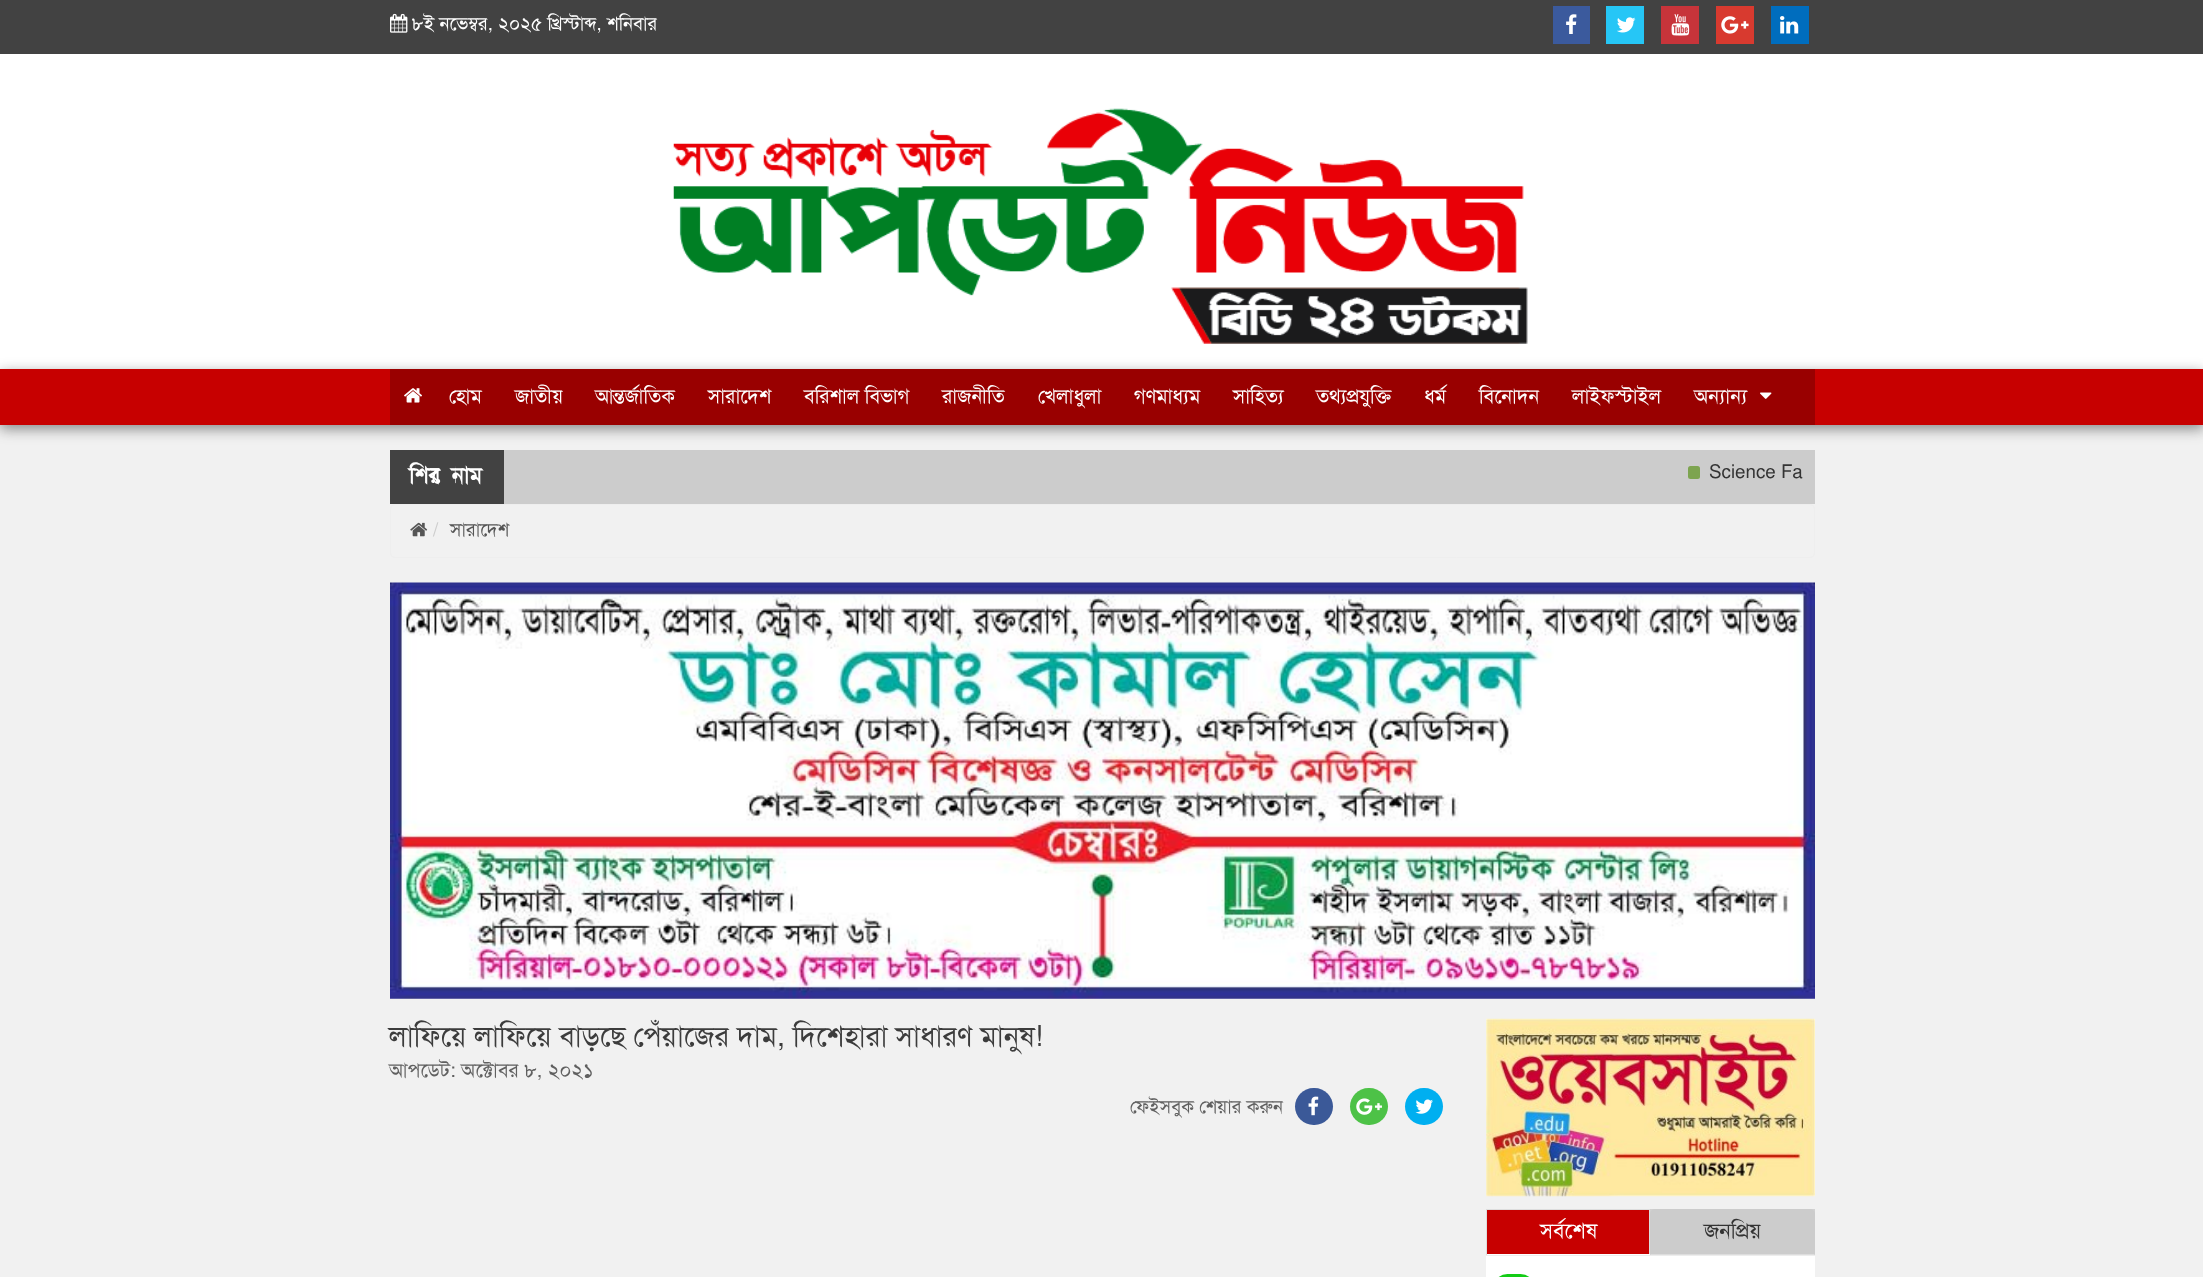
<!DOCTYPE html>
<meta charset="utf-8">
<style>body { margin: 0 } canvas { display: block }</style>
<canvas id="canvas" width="2203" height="1277"></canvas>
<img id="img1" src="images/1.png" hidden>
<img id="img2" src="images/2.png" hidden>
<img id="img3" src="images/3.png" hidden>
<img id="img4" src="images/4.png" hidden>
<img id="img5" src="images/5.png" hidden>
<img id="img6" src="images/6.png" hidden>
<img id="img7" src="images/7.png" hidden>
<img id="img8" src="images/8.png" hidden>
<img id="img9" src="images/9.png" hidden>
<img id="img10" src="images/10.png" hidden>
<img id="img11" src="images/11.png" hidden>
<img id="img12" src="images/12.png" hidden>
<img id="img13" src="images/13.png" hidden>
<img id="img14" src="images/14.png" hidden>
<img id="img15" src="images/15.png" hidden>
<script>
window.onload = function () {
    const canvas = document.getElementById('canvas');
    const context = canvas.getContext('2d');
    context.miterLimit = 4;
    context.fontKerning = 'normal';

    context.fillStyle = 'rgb(241, 241, 241)';
    context.fillRect(0, 0, 2203, 1277);
    context.fillStyle = 'rgb(255, 255, 255)';
    context.fillRect(0, 54, 2203, 315);
    context.fillStyle = 'rgb(66, 66, 66)';
    context.fillRect(0, 0, 2203, 54);
    context.drawImage(document.getElementById('img1'), 390, 13, 18, 20);
    context.fillStyle = 'rgb(59, 90, 157)';
    context.fillRect(1553, 6, 37, 38);
    context.drawImage(document.getElementById('img2'), 1566, 14, 11, 20);
    context.fillStyle = 'rgb(38, 198, 246)';
    context.fillRect(1606, 6, 38, 38);
    context.drawImage(document.getElementById('img3'), 1617, 17, 19, 16);
    context.fillStyle = 'rgb(199, 52, 58)';
    context.fillRect(1661, 6, 38, 38);
    context.drawImage(document.getElementById('img4'), 1671, 14, 19, 22);
    context.fillStyle = 'rgb(216, 58, 47)';
    context.fillRect(1716, 6, 38, 38);
    context.drawImage(document.getElementById('img5'), 1721, 16, 28, 18);
    context.fillStyle = 'rgb(0, 109, 190)';
    context.fillRect(1771, 6, 38, 38);
    context.drawImage(document.getElementById('img6'), 1780, 16, 19, 18);
    context.drawImage(document.getElementById('img7'), 673, 108, 855, 236);
    context.fillStyle = 'rgb(66, 66, 66)';
    context.fillRect(390, 450, 114, 54);
    context.fillStyle = 'rgb(204, 204, 204)';
    context.fillRect(504, 450, 1311, 54);
    context.fillStyle = 'rgba(50, 50, 50, 0.55)';
    context.filter = 'blur(7px)';
    context.beginPath();
    context.rect(0, 373, 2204, 56);
    context.fill();
    context.filter = 'none';
    context.fillStyle = 'rgb(199, 0, 0)';
    context.fillRect(0, 369, 2203, 56);
    context.fillStyle = 'rgb(153, 0, 0)';
    context.fillRect(390, 369, 1425, 56);
    context.drawImage(document.getElementById('img8'), 404, 388, 18, 15);
    context.drawImage(document.getElementById('img9'), 1760, 392, 12, 7);
    context.fillStyle = 'rgb(125, 164, 80)';
    context.beginPath();
    context.roundRect(1688, 466, 12, 13, 2.5);
    context.fill();
    context.beginPath();
    context.roundRect(390.5, 504.5, 1424, 53, 4.5);
    context.strokeStyle = 'rgb(238, 238, 238)';
    context.stroke();
    context.drawImage(document.getElementById('img10'), 410, 522, 18, 15);
    context.drawImage(document.getElementById('img11'), 390, 582, 1425, 417);
    context.fillStyle = 'rgb(59, 89, 152)';
    context.beginPath();
    context.roundRect(1295, 1088, 38, 37, 18.5);
    context.fill();
    context.drawImage(document.getElementById('img12'), 1308, 1096, 11, 20);
    context.fillStyle = 'rgb(77, 194, 71)';
    context.beginPath();
    context.roundRect(1350, 1088, 38, 37, 18.5);
    context.fill();
    context.drawImage(document.getElementById('img13'), 1356, 1098, 26, 17);
    context.fillStyle = 'rgb(0, 175, 240)';
    context.beginPath();
    context.roundRect(1405, 1088, 38, 37, 18.5);
    context.fill();
    context.drawImage(document.getElementById('img14'), 1415, 1099, 18, 15);
    context.drawImage(document.getElementById('img15'), 1486, 1018, 329, 179);
    context.fillStyle = 'rgb(255, 255, 255)';
    context.fillRect(1486, 1256, 329, 21);
    context.fillStyle = 'rgb(209, 209, 209)';
    context.fillRect(1650, 1209, 165, 5);
    context.fillStyle = 'rgb(237, 237, 237)';
    context.fillRect(1486, 1255, 329, 1);
    context.fillStyle = 'rgb(199, 0, 0)';
    context.fillRect(1487, 1210, 162, 44);
    context.fillStyle = 'rgb(221, 221, 221)';
    context.fillRect(1486, 1209, 164, 1);
    context.fillRect(1649, 1209, 1, 46);
    context.fillStyle = 'rgb(255, 255, 255)';
    context.fillRect(1486, 1254, 164, 1);
    context.fillStyle = 'rgb(221, 221, 221)';
    context.fillRect(1486, 1209, 1, 46);
    context.fillStyle = 'rgb(204, 204, 204)';
    context.beginPath();
    context.roundRect(1650, 1209, 165, 46, [5, 5, 0, 0]);
    context.fill();
    context.fillStyle = 'rgb(221, 221, 221)';
    context.beginPath();
    context.moveTo(1815, 1255);
    context.lineTo(1814, 1254);
    context.lineTo(1651, 1254);
    context.lineTo(1650, 1255);
    context.closePath();
    context.fill();
    context.beginPath();
    context.roundRect(1495.5, 1276.5, 37, 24, 18.5);
    context.strokeStyle = 'rgb(19, 204, 22)';
    context.lineWidth = 5;
    context.stroke();
    context.font = '18.75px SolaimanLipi';
    context.fillStyle = 'rgb(255, 255, 255)';
    context.fillText('৮ই নভেম্বর, ২০২৫ খ্রিস্টাব্দ, শনিবার', 412, 30);
    context.font = '20px SolaimanLipi';
    context.fillText('হোম', 449, 403);
    context.fillText('জাতীয়', 515, 403);
    context.fillText('আন্তর্জাতিক', 595, 403);
    context.fillText('সারাদেশ', 708, 403);
    context.fillText('বরিশাল বিভাগ', 804, 403);
    context.fillText('রাজনীতি', 942, 403);
    context.fillText('খেলাধুলা', 1038, 403);
    context.fillText('গণমাধ্যম', 1134, 403);
    context.fillText('সাহিত্য', 1233, 403);
    context.fillText('তথ্যপ্রযুক্তি', 1316, 403);
    context.fillText('ধর্ম', 1424, 403);
    context.fillText('বিনোদন', 1479, 403);
    context.fillText('লাইফস্টাইল', 1572, 403);
    context.fillText('অন্যান্য', 1694, 403);
    context.font = 'bold 22.5px SolaimanLipi';
    context.fillText('শিরোনাম', 409, 483);
    context.font = '18.75px SolaimanLipi';
    context.fillStyle = 'rgb(51, 51, 51)';
    context.fillText('Science Fa', 1709, 478);
    context.fillStyle = 'rgb(204, 204, 204)';
    context.fillText('/', 433, 536);
    context.fillStyle = 'rgb(85, 85, 85)';
    context.fillText('সারাদেশ', 450, 536);
    context.font = '28.75px SolaimanLipi';
    context.fillStyle = 'rgb(60, 60, 60)';
    context.fillText('লাফিয়ে লাফিয়ে বাড়ছে পেঁয়াজের দাম, দিশেহারা সাধারণ মানুষ!', 389, 1046);
    context.font = '20px SolaimanLipi';
    context.fillStyle = 'rgb(96, 96, 96)';
    context.fillText('আপডেট: অক্টোবর ৮, ২০২১', 389, 1077);
    context.font = '18.75px SolaimanLipi';
    context.fillText('ফেইসবুক শেয়ার করুন', 1130, 1113);
    context.font = '21.5px SolaimanLipi';
    context.fillStyle = 'rgb(255, 255, 255)';
    context.fillText('সর্বশেষ', 1540, 1238);
    context.fillStyle = 'rgb(51, 51, 51)';
    context.fillText('জনপ্রিয়', 1704, 1238);
};
</script>
